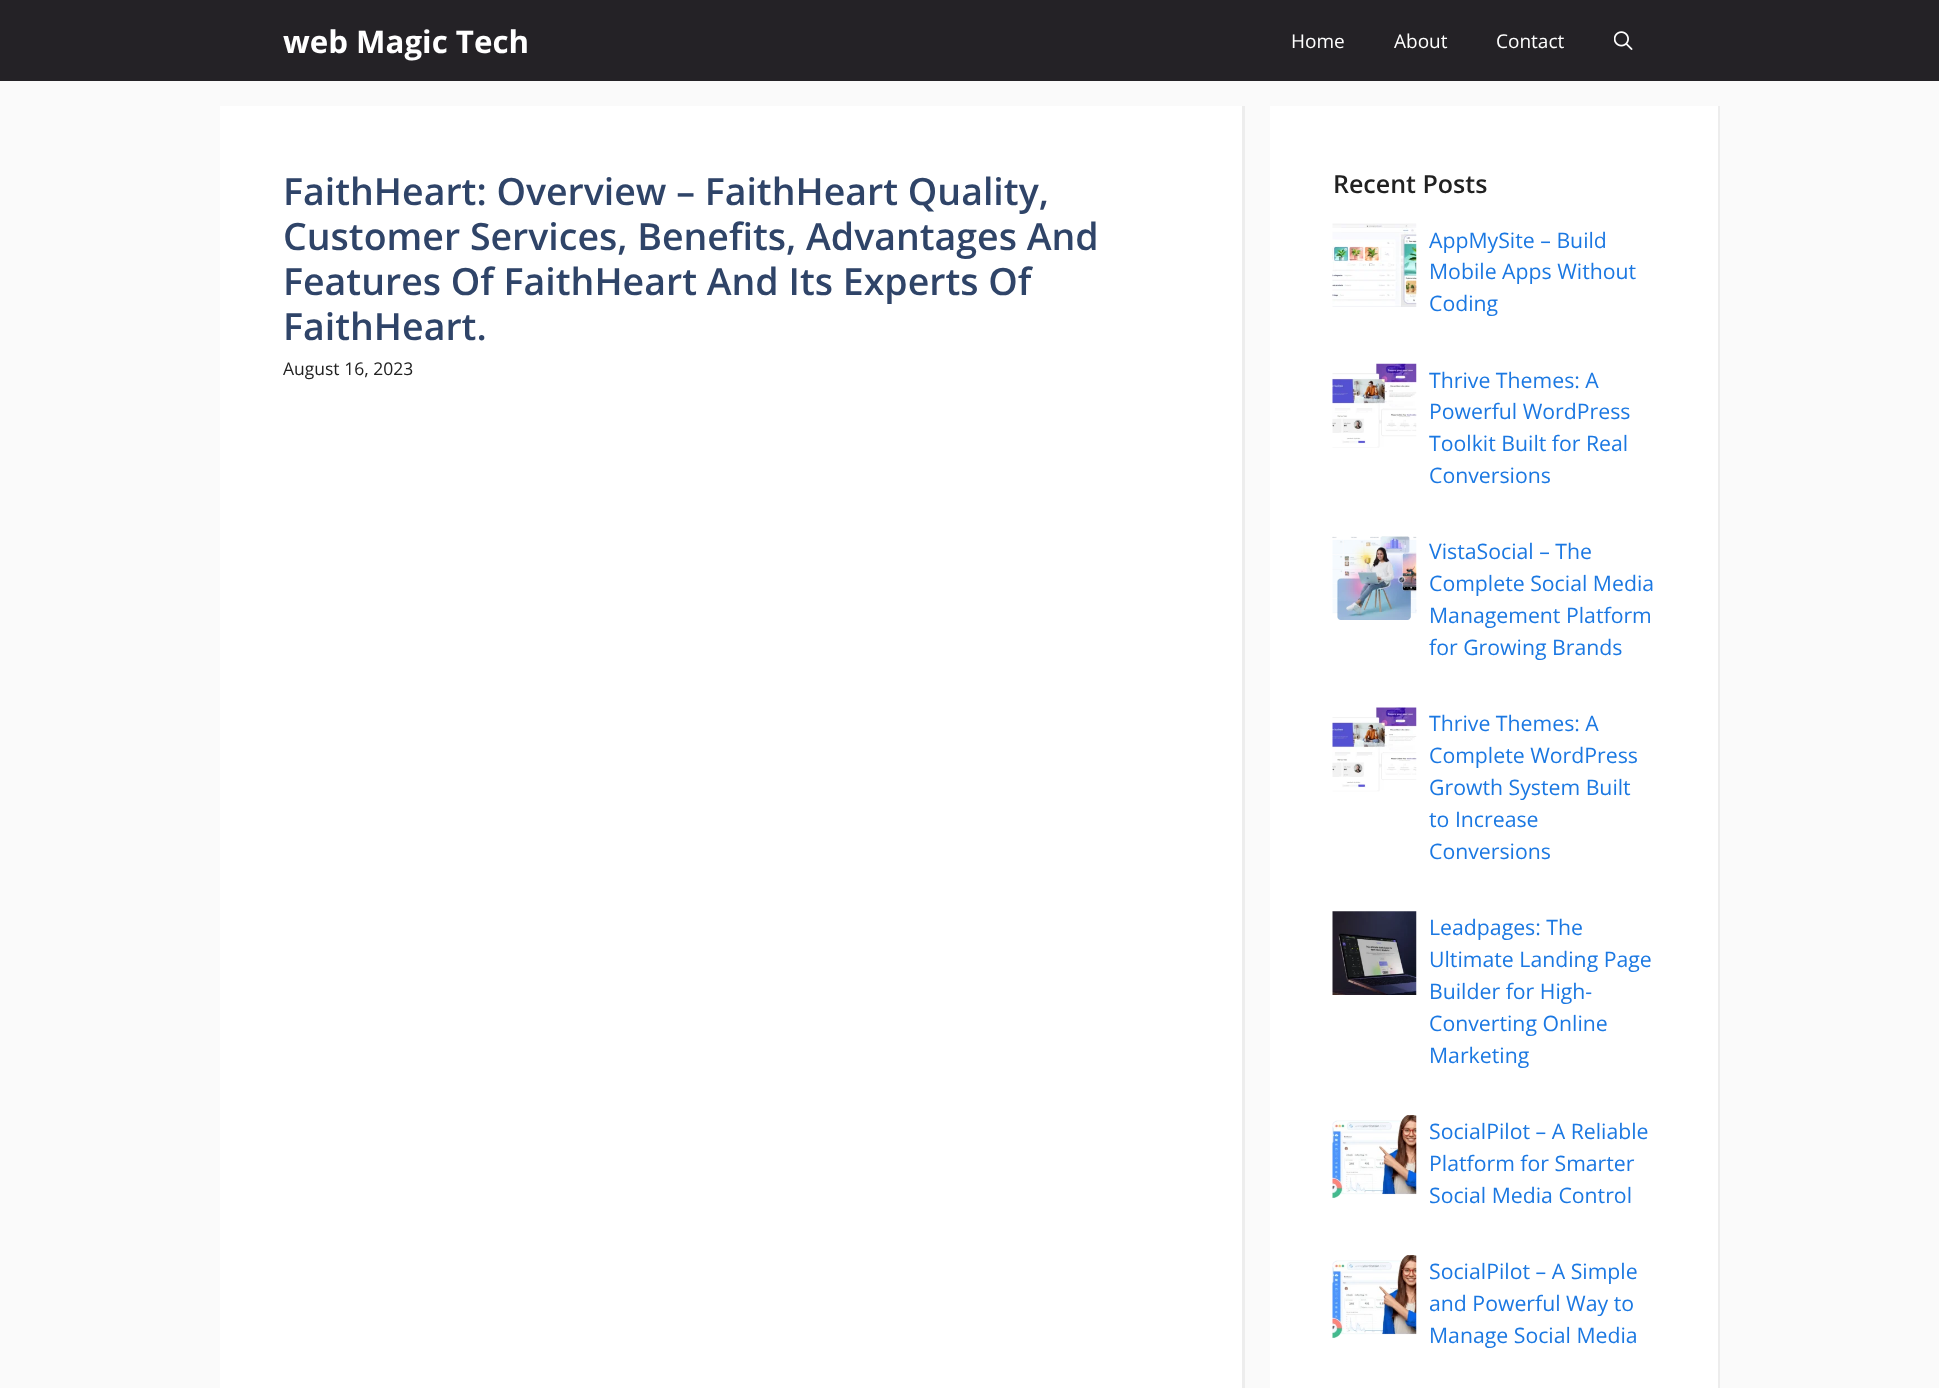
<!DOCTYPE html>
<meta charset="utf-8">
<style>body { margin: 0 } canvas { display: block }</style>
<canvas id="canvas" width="1939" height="1388"></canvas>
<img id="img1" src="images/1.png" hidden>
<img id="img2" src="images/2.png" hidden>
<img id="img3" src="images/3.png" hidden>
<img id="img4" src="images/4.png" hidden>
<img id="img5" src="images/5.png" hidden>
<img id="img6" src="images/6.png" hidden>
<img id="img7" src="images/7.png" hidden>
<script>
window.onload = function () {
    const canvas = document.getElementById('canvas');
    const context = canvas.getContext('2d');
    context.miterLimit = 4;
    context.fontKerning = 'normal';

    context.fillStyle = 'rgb(250, 250, 250)';
    context.fillRect(0, 0, 1939, 1388);
    context.fillStyle = 'rgb(36, 34, 38)';
    context.fillRect(0, 0, 1939, 81);
    context.drawImage(document.getElementById('img1'), 1614, 31, 19, 19);
    context.fillStyle = 'rgb(255, 255, 255)';
    context.fillRect(220, 106, 1022, 1282);
    context.fillStyle = 'rgb(237, 237, 237)';
    context.beginPath();
    context.moveTo(1245, 106);
    context.lineTo(1245, 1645);
    context.lineTo(1242, 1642);
    context.lineTo(1242, 106);
    context.closePath();
    context.fill();
    context.fillStyle = 'rgb(255, 255, 255)';
    context.fillRect(1270, 106, 448, 1282);
    context.fillStyle = 'rgb(237, 237, 237)';
    context.beginPath();
    context.moveTo(1720, 106);
    context.lineTo(1720, 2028);
    context.lineTo(1718, 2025);
    context.lineTo(1718, 106);
    context.closePath();
    context.fill();
    context.drawImage(document.getElementById('img2'), 1332, 223, 85, 84);
    context.drawImage(document.getElementById('img3'), 1332, 363, 85, 85);
    context.drawImage(document.getElementById('img4'), 1332, 536, 85, 84);
    context.drawImage(document.getElementById('img5'), 1332, 707, 85, 85);
    context.drawImage(document.getElementById('img6'), 1332, 911, 85, 84);
    context.drawImage(document.getElementById('img7'), 1332, 1115, 85, 84);
    context.drawImage(document.getElementById('img7'), 1332, 1255, 85, 84);
    context.font = 'bold 31.25px Open Sans';
    context.fillStyle = 'rgb(255, 255, 255)';
    context.fillText('web Magic Tech', 283, 53);
    context.font = '19px Open Sans';
    context.fillText('Home', 1291, 48);
    context.fillText('About', 1394, 48);
    context.fillText('Contact', 1496, 48);
    context.font = '600 37.5px Open Sans';
    context.fillStyle = 'rgb(47, 68, 104)';
    context.fillText('FaithHeart: Overview – FaithHeart Quality,', 283, 205);
    context.fillText('Customer Services, Benefits, Advantages And', 283, 250);
    context.fillText('Features Of FaithHeart And Its Experts Of', 283, 295);
    context.fillText('FaithHeart.', 283, 340);
    context.font = '17.5px Open Sans';
    context.fillStyle = 'rgb(33, 33, 33)';
    context.fillText('August 16, 2023', 283, 375);
    context.font = '600 25px Open Sans';
    context.fillText('Recent Posts', 1333, 193);
    context.font = '21.25px Open Sans';
    context.fillStyle = 'rgb(27, 120, 226)';
    context.fillText('AppMySite – Build', 1429, 248);
    context.fillText('Mobile Apps Without', 1429, 279);
    context.fillText('Coding', 1429, 311);
    context.fillText('Thrive Themes: A', 1429, 388);
    context.fillText('Powerful WordPress', 1429, 419);
    context.fillText('Toolkit Built for Real', 1429, 451);
    context.fillText('Conversions', 1429, 483);
    context.fillText('VistaSocial – The', 1429, 559);
    context.fillText('Complete Social Media', 1429, 591);
    context.fillText('Management Platform', 1429, 623);
    context.fillText('for Growing Brands', 1429, 655);
    context.fillText('Thrive Themes: A', 1429, 731);
    context.fillText('Complete WordPress', 1429, 763);
    context.fillText('Growth System Built', 1429, 795);
    context.fillText('to Increase', 1429, 827);
    context.fillText('Conversions', 1429, 859);
    context.fillText('Leadpages: The', 1429, 935);
    context.fillText('Ultimate Landing Page', 1429, 967);
    context.fillText('Builder for High-', 1429, 999);
    context.fillText('Converting Online', 1429, 1031);
    context.fillText('Marketing', 1429, 1063);
    context.fillText('SocialPilot – A Reliable', 1429, 1139);
    context.fillText('Platform for Smarter', 1429, 1171);
    context.fillText('Social Media Control', 1429, 1203);
    context.fillText('SocialPilot – A Simple', 1429, 1279);
    context.fillText('and Powerful Way to', 1429, 1311);
    context.fillText('Manage Social Media', 1429, 1343);
};
</script>
